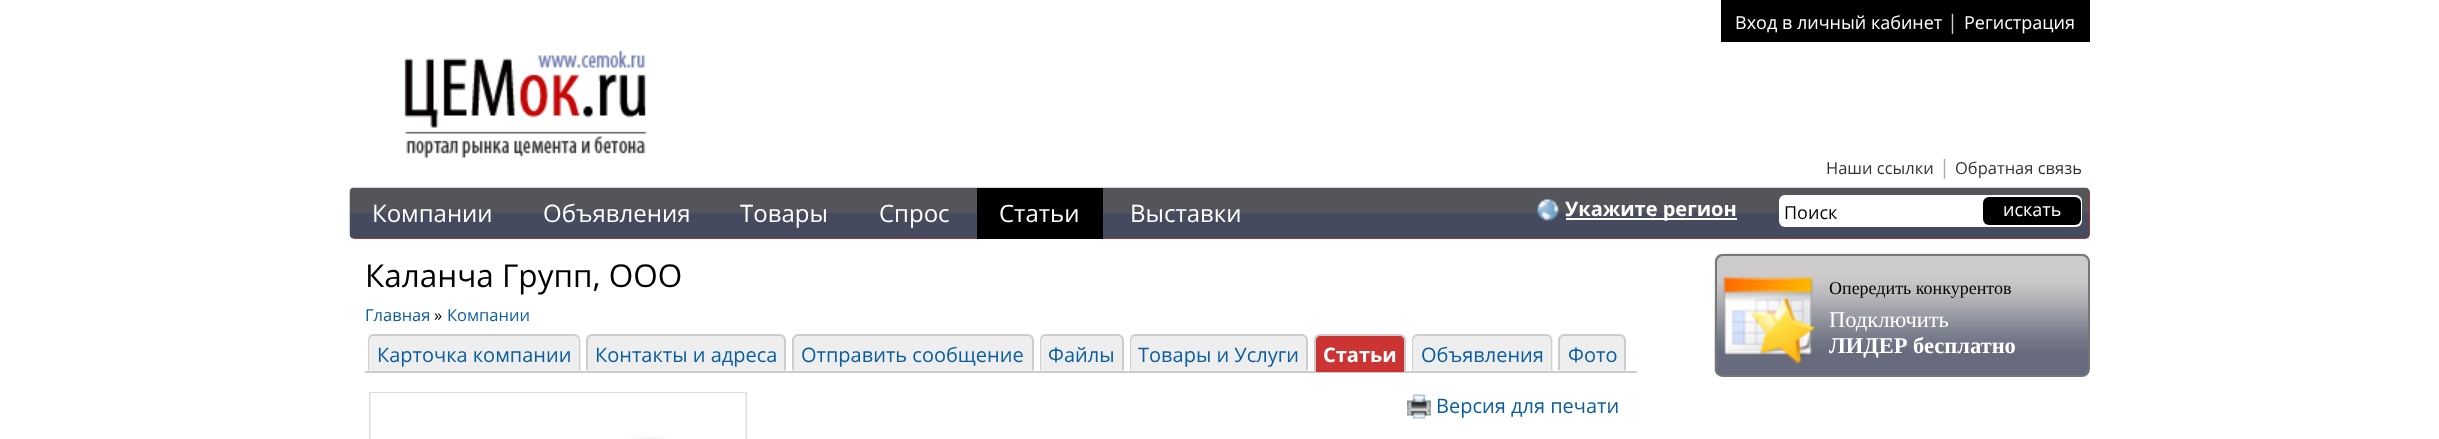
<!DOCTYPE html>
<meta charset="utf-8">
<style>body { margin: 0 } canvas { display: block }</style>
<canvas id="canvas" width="2439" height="439"></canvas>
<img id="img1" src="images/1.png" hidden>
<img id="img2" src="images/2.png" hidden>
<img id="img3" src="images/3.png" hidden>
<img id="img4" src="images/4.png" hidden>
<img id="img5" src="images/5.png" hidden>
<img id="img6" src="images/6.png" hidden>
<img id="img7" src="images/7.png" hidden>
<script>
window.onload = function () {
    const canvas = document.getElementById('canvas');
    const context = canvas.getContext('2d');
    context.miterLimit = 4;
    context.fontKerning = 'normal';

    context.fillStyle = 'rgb(255, 255, 255)';
    context.fillRect(0, 0, 2439, 439);
    context.fillStyle = 'rgb(0, 0, 0)';
    context.fillRect(1721, 0, 369, 42);
    context.drawImage(document.getElementById('img1'), 404, 50, 243, 108);
    context.fillStyle = 'rgb(204, 51, 51)';
    context.beginPath();
    context.roundRect(350, 188, 1740, 51, 5);
    context.fill();
    context.drawImage(document.getElementById('img2'), 349, 187, 1741, 52);
    context.fillStyle = 'rgb(0, 0, 0)';
    context.fillRect(977, 188, 126, 51);
    context.drawImage(document.getElementById('img3'), 1537, 199, 22, 22);
    context.fillStyle = 'rgb(255, 255, 255)';
    context.fillRect(1566, 218, 171, 2);
    context.beginPath();
    context.roundRect(1779, 195, 303, 32, 6);
    context.fill();
    context.fillStyle = 'rgb(0, 0, 0)';
    context.beginPath();
    context.roundRect(1983, 197, 98, 28, 6);
    context.fill();
    context.fillStyle = 'rgb(204, 204, 204)';
    context.fillRect(365, 371, 1272, 2);
    context.fillStyle = 'rgb(238, 238, 238)';
    context.beginPath();
    context.roundRect(368, 335, 213, 36, [6, 6, 0, 0]);
    context.fill();
    context.fillStyle = 'rgb(204, 204, 204)';
    context.beginPath();
    context.moveTo(374, 334);
    context.lineTo(574, 334);
    context.bezierCurveTo(578, 334, 580, 337, 580, 340);
    context.lineTo(580, 370);
    context.lineTo(368, 370);
    context.lineTo(368, 340);
    context.bezierCurveTo(368, 337, 370, 334, 374, 334);
    context.closePath();
    context.moveTo(374, 336);
    context.lineTo(574, 336);
    context.bezierCurveTo(577, 336, 579, 338, 579, 340);
    context.lineTo(579, 370);
    context.lineTo(369, 370);
    context.lineTo(369, 340);
    context.bezierCurveTo(369, 338, 371, 336, 374, 336);
    context.closePath();
    context.fill('evenodd');
    context.fillStyle = 'rgb(238, 238, 238)';
    context.beginPath();
    context.roundRect(587, 335, 199, 36, [6, 6, 0, 0]);
    context.fill();
    context.fillStyle = 'rgb(204, 204, 204)';
    context.beginPath();
    context.moveTo(592, 334);
    context.lineTo(780, 334);
    context.bezierCurveTo(783, 334, 786, 337, 786, 340);
    context.lineTo(786, 370);
    context.lineTo(586, 370);
    context.lineTo(586, 340);
    context.bezierCurveTo(586, 337, 589, 334, 592, 334);
    context.closePath();
    context.moveTo(592, 336);
    context.lineTo(780, 336);
    context.bezierCurveTo(782, 336, 784, 338, 784, 340);
    context.lineTo(784, 370);
    context.lineTo(588, 370);
    context.lineTo(588, 340);
    context.bezierCurveTo(588, 338, 590, 336, 592, 336);
    context.closePath();
    context.fill('evenodd');
    context.fillStyle = 'rgb(238, 238, 238)';
    context.beginPath();
    context.roundRect(792, 335, 242, 36, [6, 6, 0, 0]);
    context.fill();
    context.fillStyle = 'rgb(204, 204, 204)';
    context.beginPath();
    context.moveTo(798, 334);
    context.lineTo(1028, 334);
    context.bezierCurveTo(1031, 334, 1034, 337, 1034, 340);
    context.lineTo(1034, 370);
    context.lineTo(792, 370);
    context.lineTo(792, 340);
    context.bezierCurveTo(792, 337, 795, 334, 798, 334);
    context.closePath();
    context.moveTo(798, 336);
    context.lineTo(1028, 336);
    context.bezierCurveTo(1030, 336, 1032, 338, 1032, 340);
    context.lineTo(1032, 370);
    context.lineTo(794, 370);
    context.lineTo(794, 340);
    context.bezierCurveTo(794, 338, 796, 336, 798, 336);
    context.closePath();
    context.fill('evenodd');
    context.fillStyle = 'rgb(238, 238, 238)';
    context.beginPath();
    context.roundRect(1040, 335, 84, 36, [6, 6, 0, 0]);
    context.fill();
    context.fillStyle = 'rgb(204, 204, 204)';
    context.beginPath();
    context.moveTo(1046, 334);
    context.lineTo(1118, 334);
    context.bezierCurveTo(1121, 334, 1124, 337, 1124, 340);
    context.lineTo(1124, 370);
    context.lineTo(1040, 370);
    context.lineTo(1040, 340);
    context.bezierCurveTo(1040, 337, 1042, 334, 1046, 334);
    context.closePath();
    context.moveTo(1046, 336);
    context.lineTo(1118, 336);
    context.bezierCurveTo(1120, 336, 1122, 338, 1122, 340);
    context.lineTo(1122, 370);
    context.lineTo(1041, 370);
    context.lineTo(1041, 340);
    context.bezierCurveTo(1041, 338, 1043, 336, 1046, 336);
    context.closePath();
    context.fill('evenodd');
    context.fillStyle = 'rgb(238, 238, 238)';
    context.beginPath();
    context.roundRect(1130, 335, 178, 36, [6, 6, 0, 0]);
    context.fill();
    context.fillStyle = 'rgb(204, 204, 204)';
    context.beginPath();
    context.moveTo(1136, 334);
    context.lineTo(1302, 334);
    context.bezierCurveTo(1305, 334, 1308, 337, 1308, 340);
    context.lineTo(1308, 370);
    context.lineTo(1130, 370);
    context.lineTo(1130, 340);
    context.bezierCurveTo(1130, 337, 1132, 334, 1136, 334);
    context.closePath();
    context.moveTo(1136, 336);
    context.lineTo(1302, 336);
    context.bezierCurveTo(1304, 336, 1306, 338, 1306, 340);
    context.lineTo(1306, 370);
    context.lineTo(1131, 370);
    context.lineTo(1131, 340);
    context.bezierCurveTo(1131, 338, 1133, 336, 1136, 336);
    context.closePath();
    context.fill('evenodd');
    context.fillStyle = 'rgb(204, 51, 51)';
    context.beginPath();
    context.roundRect(1314, 335, 92, 37, [6, 6, 0, 0]);
    context.fill();
    context.fillStyle = 'rgb(204, 204, 204)';
    context.beginPath();
    context.moveTo(1320, 334);
    context.lineTo(1400, 334);
    context.bezierCurveTo(1403, 334, 1406, 337, 1406, 340);
    context.lineTo(1406, 372);
    context.lineTo(1314, 372);
    context.lineTo(1314, 340);
    context.bezierCurveTo(1314, 337, 1317, 334, 1320, 334);
    context.closePath();
    context.moveTo(1320, 336);
    context.lineTo(1400, 336);
    context.bezierCurveTo(1402, 336, 1404, 338, 1404, 340);
    context.lineTo(1404, 372);
    context.lineTo(1316, 372);
    context.lineTo(1316, 340);
    context.bezierCurveTo(1316, 338, 1318, 336, 1320, 336);
    context.closePath();
    context.fill('evenodd');
    context.fillStyle = 'rgb(238, 238, 238)';
    context.beginPath();
    context.roundRect(1412, 335, 141, 36, [6, 6, 0, 0]);
    context.fill();
    context.fillStyle = 'rgb(204, 204, 204)';
    context.beginPath();
    context.moveTo(1418, 334);
    context.lineTo(1546, 334);
    context.bezierCurveTo(1550, 334, 1552, 337, 1552, 340);
    context.lineTo(1552, 370);
    context.lineTo(1412, 370);
    context.lineTo(1412, 340);
    context.bezierCurveTo(1412, 337, 1414, 334, 1418, 334);
    context.closePath();
    context.moveTo(1418, 336);
    context.lineTo(1546, 336);
    context.bezierCurveTo(1549, 336, 1551, 338, 1551, 340);
    context.lineTo(1551, 370);
    context.lineTo(1413, 370);
    context.lineTo(1413, 340);
    context.bezierCurveTo(1413, 338, 1415, 336, 1418, 336);
    context.closePath();
    context.fill('evenodd');
    context.fillStyle = 'rgb(238, 238, 238)';
    context.beginPath();
    context.roundRect(1559, 335, 67, 36, [6, 6, 0, 0]);
    context.fill();
    context.fillStyle = 'rgb(204, 204, 204)';
    context.beginPath();
    context.moveTo(1564, 334);
    context.lineTo(1620, 334);
    context.bezierCurveTo(1623, 334, 1626, 337, 1626, 340);
    context.lineTo(1626, 370);
    context.lineTo(1558, 370);
    context.lineTo(1558, 340);
    context.bezierCurveTo(1558, 337, 1561, 334, 1564, 334);
    context.closePath();
    context.moveTo(1564, 336);
    context.lineTo(1620, 336);
    context.bezierCurveTo(1622, 336, 1624, 338, 1624, 340);
    context.lineTo(1624, 370);
    context.lineTo(1560, 370);
    context.lineTo(1560, 340);
    context.bezierCurveTo(1560, 338, 1562, 336, 1564, 336);
    context.closePath();
    context.fill('evenodd');
    context.strokeStyle = 'rgb(221, 221, 221)';
    context.lineWidth = 2;
    context.strokeRect(370, 393, 376, 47);
    context.drawImage(document.getElementById('img4'), 370, 393, 376, 46);
    context.drawImage(document.getElementById('img5'), 1407, 394, 24, 25);
    context.drawImage(document.getElementById('img6'), 1714, 253, 376, 122);
    context.beginPath();
    context.roundRect(1716, 255, 373, 121, 7);
    context.strokeStyle = 'rgb(119, 119, 119)';
    context.stroke();
    context.drawImage(document.getElementById('img7'), 1723, 277, 94, 88);
    context.font = '18px Open Sans';
    context.fillStyle = 'rgb(255, 255, 255)';
    context.fillText('Вход в личный кабинет', 1735, 29);
    context.font = '20px Open Sans';
    context.fillStyle = 'rgb(204, 204, 204)';
    context.fillText('|', 1947, 29);
    context.font = '18px Open Sans';
    context.fillStyle = 'rgb(255, 255, 255)';
    context.fillText('Регистрация', 1964, 29);
    context.font = '16.5px Open Sans';
    context.fillStyle = 'rgb(51, 51, 51)';
    context.fillText('Наши ссылки', 1826, 174);
    context.font = '20px Open Sans';
    context.fillStyle = 'rgb(170, 170, 170)';
    context.fillText('|', 1939, 174);
    context.font = '16.5px Open Sans';
    context.fillStyle = 'rgb(51, 51, 51)';
    context.fillText('Обратная связь', 1955, 174);
    context.font = '24px Open Sans';
    context.fillStyle = 'rgb(255, 255, 255)';
    context.fillText('Компании', 372, 222);
    context.fillText('Объявления', 543, 222);
    context.fillText('Товары', 740, 222);
    context.fillText('Спрос', 879, 222);
    context.fillText('Статьи', 999, 222);
    context.fillText('Выставки', 1130, 222);
    context.font = 'bold 20px Open Sans';
    context.fillText('Укажите регион', 1565, 216);
    context.font = '18px Open Sans';
    context.fillStyle = 'rgb(0, 0, 0)';
    context.fillText('Поиск', 1784, 219);
    context.fillStyle = 'rgb(255, 255, 255)';
    context.fillText('искать', 2003, 216);
    context.font = '31.5px Open Sans';
    context.fillStyle = 'rgb(0, 0, 0)';
    context.fillText('Каланча Групп, ООО', 365, 287);
    context.font = '16.5px Open Sans';
    context.fillStyle = 'rgb(9, 92, 159)';
    context.fillText('Главная', 365, 321);
    context.fillStyle = 'rgb(0, 0, 0)';
    context.fillText('»', 434, 321);
    context.fillStyle = 'rgb(9, 92, 159)';
    context.fillText('Компании', 447, 321);
    context.font = '20px Open Sans';
    context.fillText('Карточка компании', 377, 362);
    context.fillText('Контакты и адреса', 595, 362);
    context.fillText('Отправить сообщение', 801, 362);
    context.fillText('Файлы', 1048, 362);
    context.fillText('Товары и Услуги', 1138, 362);
    context.font = 'bold 20px Open Sans';
    context.fillStyle = 'rgb(255, 255, 255)';
    context.fillText('Статьи', 1323, 362);
    context.font = '20px Open Sans';
    context.fillStyle = 'rgb(9, 92, 159)';
    context.fillText('Объявления', 1421, 362);
    context.fillText('Фото', 1568, 362);
    context.fillText('Версия для печати', 1436, 413);
    context.font = '18px Liberation Serif';
    context.fillStyle = 'rgb(0, 0, 0)';
    context.fillText('Опередить конкурентов', 1829, 294);
    context.font = '22.5px Liberation Serif';
    context.fillStyle = 'rgb(255, 255, 255)';
    context.fillText('Подключить', 1829, 327);
    context.font = 'bold 22.5px Liberation Serif';
    context.fillText('ЛИДЕР бесплатно', 1829, 353);
};
</script>
